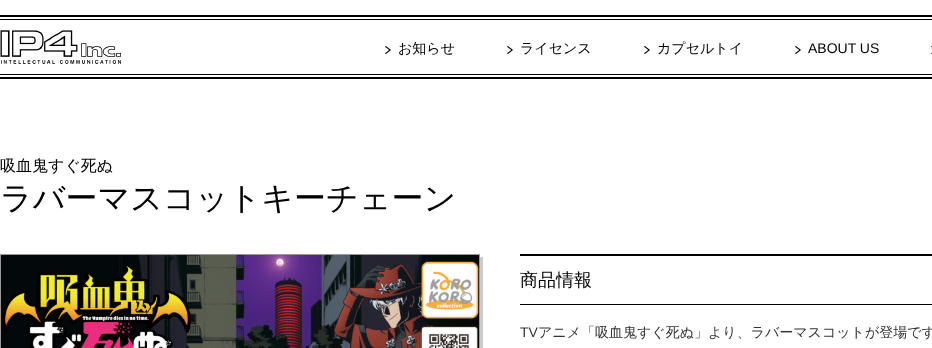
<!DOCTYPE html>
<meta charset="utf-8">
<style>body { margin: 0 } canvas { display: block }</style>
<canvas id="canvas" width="932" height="348"></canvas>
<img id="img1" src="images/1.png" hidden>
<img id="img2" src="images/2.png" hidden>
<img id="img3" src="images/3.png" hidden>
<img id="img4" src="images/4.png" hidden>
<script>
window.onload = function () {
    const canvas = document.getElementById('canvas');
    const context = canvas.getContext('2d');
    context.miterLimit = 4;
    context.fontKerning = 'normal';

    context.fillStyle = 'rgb(255, 255, 255)';
    context.fillRect(0, 0, 932, 348);
    context.fillStyle = 'rgb(0, 0, 0)';
    context.fillRect(0, 15, 932, 2);
    context.fillRect(0, 77, 932, 2);
    context.fillRect(0, 19, 932, 1);
    context.fillRect(0, 74, 932, 1);
    context.drawImage(document.getElementById('img1'), 0, 30, 121, 34);
    context.drawImage(document.getElementById('img2'), 385, 46, 6, 8);
    context.drawImage(document.getElementById('img2'), 507, 46, 6, 8);
    context.drawImage(document.getElementById('img2'), 644, 46, 6, 8);
    context.drawImage(document.getElementById('img2'), 795, 46, 6, 8);
    context.drawImage(document.getElementById('img3'), 931, 46, 1, 8);
    context.fillStyle = 'rgb(204, 204, 204)';
    context.beginPath();
    context.moveTo(3, 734);
    context.lineTo(3, 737);
    context.lineTo(483, 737);
    context.lineTo(483, 257);
    context.lineTo(480, 257);
    context.lineTo(480, 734);
    context.closePath();
    context.fill();
    context.strokeStyle = 'rgb(153, 153, 153)';
    context.strokeRect(0.5, 254.5, 479, 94);
    context.drawImage(document.getElementById('img4'), 1, 255, 478, 93);
    context.fillStyle = 'rgb(0, 0, 0)';
    context.fillRect(520, 254, 412, 2);
    context.fillRect(520, 304, 412, 1);
    context.font = '500 14px WenQuanYi Zen Hei';
    context.fillText('お知らせ', 398, 53);
    context.fillText('ライセンス', 520, 53);
    context.fillText('カプセルトイ', 657, 53);
    context.font = '14px Liberation Sans';
    context.fillText('ABOUT US', 808, 53);
    context.font = '500 16px WenQuanYi Zen Hei';
    context.fillText('吸血鬼すぐ死ぬ', 0, 171);
    context.font = '500 32px WenQuanYi Zen Hei';
    context.fillText('ラバーマスコットキーチェーン', 0, 209);
    context.font = '500 18px WenQuanYi Zen Hei';
    context.fillText('商品情報', 520, 286);
    context.font = '14px Liberation Sans';
    context.fillStyle = 'rgb(51, 51, 51)';
    context.fillText('TV', 520, 337);
    context.font = '500 14px WenQuanYi Zen Hei';
    context.fillText('アニメ「吸血鬼すぐ死ぬ」より、ラバーマスコットが登場です', 538, 337);
};
</script>
